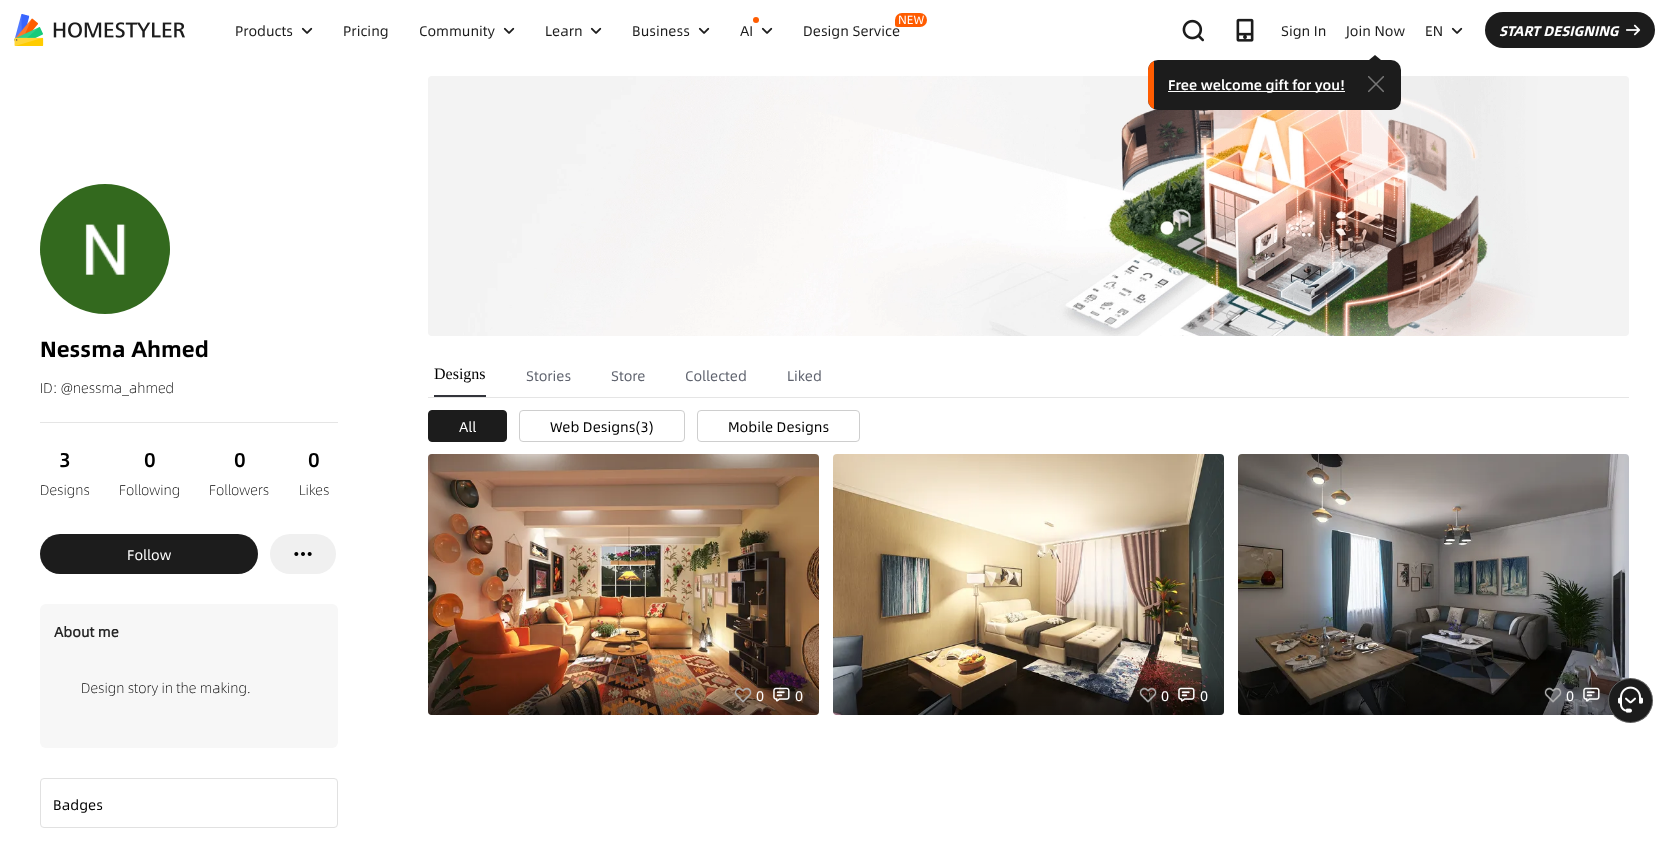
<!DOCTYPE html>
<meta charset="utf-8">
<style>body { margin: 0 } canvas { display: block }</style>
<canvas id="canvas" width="1669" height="847"></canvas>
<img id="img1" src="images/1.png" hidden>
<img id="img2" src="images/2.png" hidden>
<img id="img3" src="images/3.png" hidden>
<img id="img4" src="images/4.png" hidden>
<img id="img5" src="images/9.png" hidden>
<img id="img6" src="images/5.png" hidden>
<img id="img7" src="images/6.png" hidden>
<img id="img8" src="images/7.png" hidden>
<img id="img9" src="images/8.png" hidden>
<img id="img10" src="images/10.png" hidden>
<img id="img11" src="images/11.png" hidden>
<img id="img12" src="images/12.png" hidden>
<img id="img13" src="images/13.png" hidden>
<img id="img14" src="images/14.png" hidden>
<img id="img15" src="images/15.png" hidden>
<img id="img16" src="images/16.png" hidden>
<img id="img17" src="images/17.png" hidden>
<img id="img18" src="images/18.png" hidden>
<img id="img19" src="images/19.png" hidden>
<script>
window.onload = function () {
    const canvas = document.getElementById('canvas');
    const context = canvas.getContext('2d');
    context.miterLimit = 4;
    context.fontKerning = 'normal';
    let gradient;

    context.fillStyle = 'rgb(255, 255, 255)';
    context.fillRect(0, 0, 1669, 847);
    context.drawImage(document.getElementById('img1'), 14, 14, 171, 32);
    context.drawImage(document.getElementById('img2'), 301, 27, 12, 7);
    context.drawImage(document.getElementById('img2'), 503, 27, 12, 7);
    context.drawImage(document.getElementById('img2'), 590, 27, 12, 7);
    context.drawImage(document.getElementById('img2'), 698, 27, 12, 7);
    context.fillStyle = 'rgb(255, 92, 0)';
    context.beginPath();
    context.arc(756, 20, 3, 0, 2 * Math.PI);
    context.fill();
    context.drawImage(document.getElementById('img2'), 761, 27, 12, 7);
    context.drawImage(document.getElementById('img3'), 1182, 19, 22, 23);
    context.drawImage(document.getElementById('img4'), 1236, 18, 18, 24);
    context.fillStyle = 'rgb(28, 28, 28)';
    context.beginPath();
    context.moveTo(1381, 60);
    context.lineTo(1369, 60);
    context.lineTo(1375, 55);
    context.closePath();
    context.fill();
    context.drawImage(document.getElementById('img5'), 428, 76, 1201, 260);
    context.beginPath();
    context.roundRect(1148, 60, 253, 50, 10);
    context.fill();
    context.save();
    context.beginPath();
    context.roundRect(1148, 60, 253, 50, 10);
    context.clip();
    context.fillStyle = 'rgb(255, 92, 0)';
    context.fillRect(1148, 60, 6, 50);
    context.restore();
    context.fillStyle = 'rgb(255, 255, 255)';
    context.fillRect(1168, 91, 177, 1);
    context.drawImage(document.getElementById('img6'), 1368, 76, 16, 17);
    context.drawImage(document.getElementById('img2'), 1451, 27, 12, 7);
    context.fillStyle = 'rgb(28, 28, 28)';
    context.beginPath();
    context.roundRect(1485, 12, 170, 36, 18);
    context.fill();
    context.drawImage(document.getElementById('img7'), 1626, 24, 15, 12);
    context.drawImage(document.getElementById('img8'), 40, 184, 130, 130);
    context.fillStyle = 'rgb(229, 229, 229)';
    context.fillRect(40, 422, 298, 1);
    context.fillStyle = 'rgb(28, 28, 28)';
    context.beginPath();
    context.roundRect(40, 534, 218, 40, 20);
    context.fill();
    context.fillStyle = 'rgb(240, 240, 240)';
    context.beginPath();
    context.roundRect(270, 534, 66, 40, 20);
    context.fill();
    context.drawImage(document.getElementById('img9'), 294, 552, 18, 4);
    context.fillStyle = 'rgb(247, 247, 247)';
    context.beginPath();
    context.roundRect(40, 604, 298, 144, 6);
    context.fill();
    context.beginPath();
    context.roundRect(40.5, 778.5, 297, 49, 3.5);
    context.strokeStyle = 'rgb(225, 225, 225)';
    context.stroke();
    context.fillStyle = 'rgb(229, 229, 229)';
    context.fillRect(428, 397, 1201, 1);
    context.fillStyle = 'rgb(51, 53, 59)';
    context.fillRect(434, 395, 52, 2);
    context.fillStyle = 'rgb(28, 28, 28)';
    context.beginPath();
    context.roundRect(428.5, 410.5, 78, 31, 3.5);
    context.fill();
    context.strokeStyle = 'rgb(28, 28, 28)';
    context.stroke();
    context.beginPath();
    context.roundRect(519.5, 410.5, 165, 31, 3.5);
    context.strokeStyle = 'rgb(206, 206, 206)';
    context.stroke();
    context.beginPath();
    context.roundRect(697.5, 410.5, 162, 31, 3.5);
    context.stroke();
    context.drawImage(document.getElementById('img10'), 428, 454, 391, 261);
    gradient = context.createLinearGradient(624, 675, 624, 715);
    gradient.addColorStop(0, 'rgba(0, 0, 0, 0)');
    gradient.addColorStop(1, 'rgba(0, 0, 0, 0.4)');
    context.fillStyle = gradient;
    context.beginPath();
    context.roundRect(428, 675, 391, 40, [0, 0, 4, 4]);
    context.fill();
    context.drawImage(document.getElementById('img11'), 734, 687, 18, 16);
    context.drawImage(document.getElementById('img12'), 773, 687, 17, 15);
    context.drawImage(document.getElementById('img13'), 833, 454, 391, 261);
    gradient = context.createLinearGradient(1029, 675, 1029, 715);
    gradient.addColorStop(0, 'rgba(0, 0, 0, 0)');
    gradient.addColorStop(1, 'rgba(0, 0, 0, 0.4)');
    context.fillStyle = gradient;
    context.beginPath();
    context.roundRect(833, 675, 391, 40, [0, 0, 4, 4]);
    context.fill();
    context.drawImage(document.getElementById('img14'), 1139, 687, 18, 16);
    context.drawImage(document.getElementById('img15'), 1178, 687, 17, 15);
    context.drawImage(document.getElementById('img16'), 1238, 454, 391, 261);
    gradient = context.createLinearGradient(1434, 675, 1434, 715);
    gradient.addColorStop(0, 'rgba(0, 0, 0, 0)');
    gradient.addColorStop(1, 'rgba(0, 0, 0, 0.4)');
    context.fillStyle = gradient;
    context.beginPath();
    context.roundRect(1238, 675, 391, 40, [0, 0, 4, 4]);
    context.fill();
    context.drawImage(document.getElementById('img17'), 1544, 687, 18, 16);
    context.drawImage(document.getElementById('img18'), 1583, 687, 17, 15);
    context.fillStyle = 'rgb(28, 28, 28)';
    context.beginPath();
    context.arc(1630.5, 700.5, 22.5, 0, 2 * Math.PI);
    context.fill();
    context.beginPath();
    context.arc(1630.5, 700.5, 22, 0, 2 * Math.PI);
    context.strokeStyle = 'rgba(255, 255, 255, 0.3)';
    context.stroke();
    context.drawImage(document.getElementById('img19'), 1618, 686, 25, 27);
    context.font = '14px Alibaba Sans';
    context.fillText('Products', 235, 36);
    context.fillText('Pricing', 343, 36);
    context.fillText('Community', 419, 36);
    context.fillText('Learn', 545, 36);
    context.fillText('Business', 632, 36);
    context.fillText('AI', 740, 36);
    context.fillText('Design Service', 803, 36);
    context.fillStyle = 'rgb(255, 92, 0)';
    context.beginPath();
    context.roundRect(895, 13, 32, 14, [7, 7, 7, 2.5]);
    context.fill();
    context.font = '12px Alibaba Sans';
    context.fillStyle = 'rgb(255, 255, 255)';
    context.fillText('NEW', 898, 24);
    context.font = '14px Alibaba Sans';
    context.fillStyle = 'rgb(28, 28, 28)';
    context.fillText('Join Now', 1346, 36);
    context.font = '500 14px Alibaba Sans';
    context.fillStyle = 'rgb(255, 255, 255)';
    context.fillText('Free welcome gift for you!', 1168, 90);
    context.font = '14px Alibaba Sans';
    context.fillStyle = 'rgb(28, 28, 28)';
    context.fillText('Sign In', 1281, 36);
    context.fillText('EN', 1425, 36);
    context.font = 'italic bold 14px Alibaba Sans';
    context.fillStyle = 'rgb(255, 255, 255)';
    context.fillText('START DESIGNING', 1499, 36);
    context.font = 'bold 22px Alibaba Sans';
    context.fillStyle = 'rgb(0, 0, 0)';
    context.fillText('Nessma Ahmed', 40, 357);
    context.font = '300 14px Alibaba Sans';
    context.fillText('ID: @nessma_ahmed', 40, 393);
    context.font = '500 20px Alibaba Sans';
    context.fillText('3', 59, 467);
    context.font = '300 14px Alibaba Sans';
    context.fillText('Designs', 40, 495);
    context.font = '500 20px Alibaba Sans';
    context.fillText('0', 144, 467);
    context.font = '300 14px Alibaba Sans';
    context.fillText('Following', 119, 495);
    context.font = '500 20px Alibaba Sans';
    context.fillText('0', 234, 467);
    context.font = '300 14px Alibaba Sans';
    context.fillText('Followers', 209, 495);
    context.font = '500 20px Alibaba Sans';
    context.fillText('0', 308, 467);
    context.font = '300 14px Alibaba Sans';
    context.fillText('Likes', 299, 495);
    context.font = '14px Alibaba Sans';
    context.fillStyle = 'rgb(255, 255, 255)';
    context.fillText('Follow', 127, 560);
    context.font = 'bold 14px "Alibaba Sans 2"';
    context.fillStyle = 'rgb(37, 37, 37)';
    context.fillText('About me', 54, 637);
    context.font = '300 14px Alibaba Sans';
    context.fillStyle = 'rgb(0, 0, 0)';
    context.fillText('Design story in the making.', 81, 693);
    context.font = '14px Alibaba Sans';
    context.fillText('Badges', 53, 810);
    context.font = '16px Liberation Serif';
    context.fillText('Designs', 434, 379);
    context.font = '14px Alibaba Sans';
    context.fillStyle = 'rgb(96, 100, 111)';
    context.fillText('Stories', 526, 381);
    context.fillText('Store', 611, 381);
    context.fillText('Collected', 685, 381);
    context.fillText('Liked', 787, 381);
    context.fillStyle = 'rgb(255, 255, 255)';
    context.fillText('All', 459, 432);
    context.fillStyle = 'rgb(0, 0, 0)';
    context.fillText('Web Designs(3)', 550, 432);
    context.fillText('Mobile Designs', 728, 432);
    context.fillStyle = 'rgb(255, 255, 255)';
    context.fillText('0', 756, 701);
    context.fillText('0', 795, 701);
    context.fillText('0', 1161, 701);
    context.fillText('0', 1200, 701);
    context.fillText('0', 1566, 701);
};
</script>
